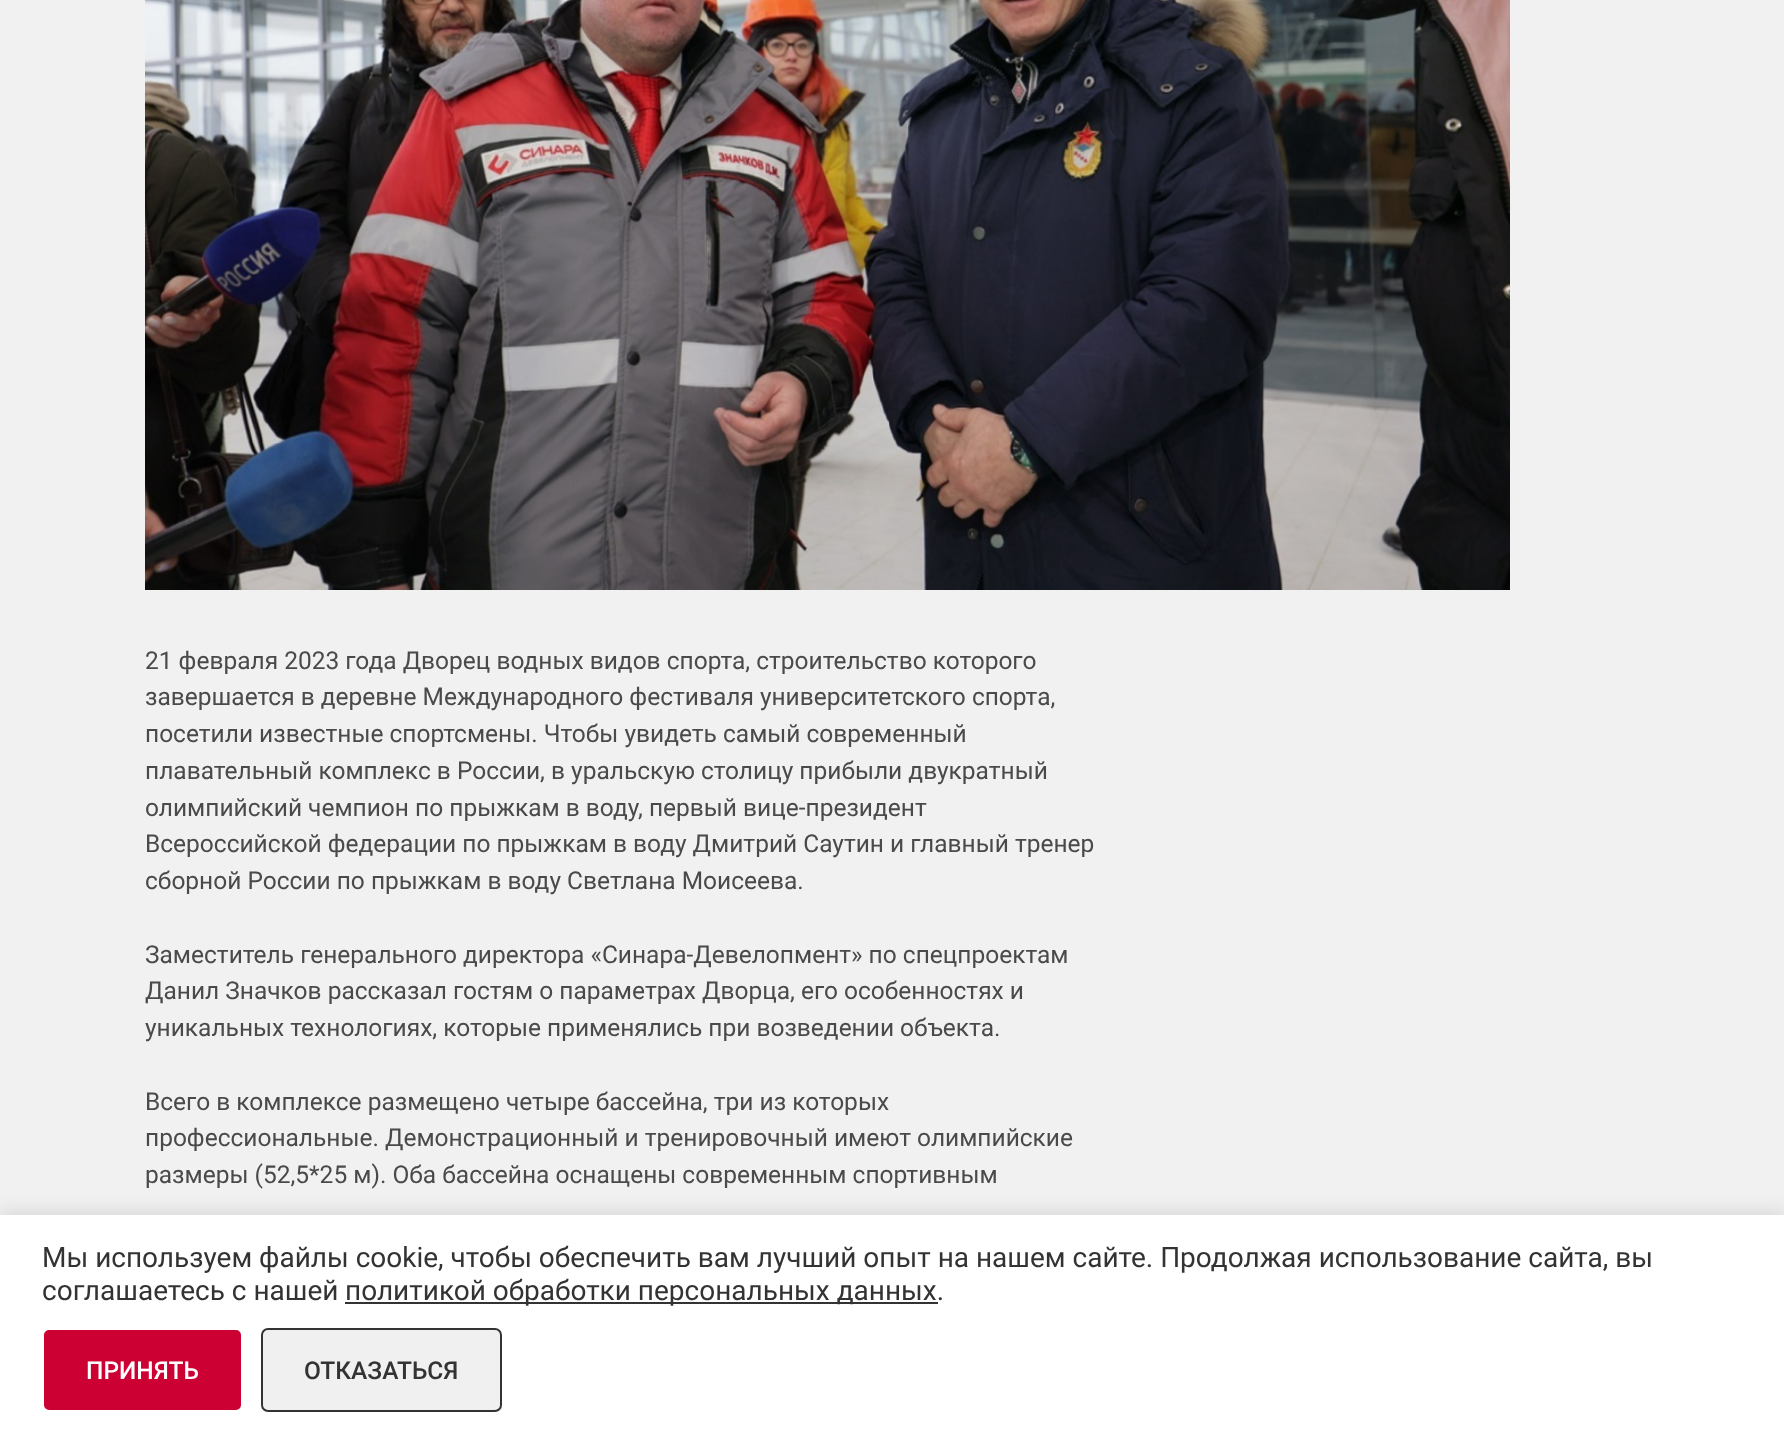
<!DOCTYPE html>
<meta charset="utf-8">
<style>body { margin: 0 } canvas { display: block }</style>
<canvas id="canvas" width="1784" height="1439"></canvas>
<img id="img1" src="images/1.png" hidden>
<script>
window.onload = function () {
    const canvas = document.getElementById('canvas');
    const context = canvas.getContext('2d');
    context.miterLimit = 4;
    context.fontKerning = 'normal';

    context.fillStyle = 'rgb(241, 241, 241)';
    context.fillRect(0, 0, 1784, 1439);
    context.drawImage(document.getElementById('img1'), 145, 0, 1365, 590);
    context.fillStyle = 'rgba(0, 0, 0, 0.1)';
    context.filter = 'blur(9px)';
    context.beginPath();
    context.rect(0, 1211, 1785, 226);
    context.fill();
    context.filter = 'none';
    context.fillStyle = 'rgb(255, 255, 255)';
    context.fillRect(0, 1215, 1784, 224);
    context.fillStyle = 'rgb(51, 51, 51)';
    context.fillRect(345, 1302, 593, 2);
    context.fillStyle = 'rgb(204, 0, 51)';
    context.beginPath();
    context.roundRect(43, 1329, 199, 82, 6);
    context.fill();
    context.strokeStyle = 'rgb(255, 255, 255)';
    context.lineWidth = 2;
    context.stroke();
    context.fillStyle = 'rgb(240, 240, 240)';
    context.beginPath();
    context.roundRect(262, 1329, 239, 82, 6);
    context.fill();
    context.strokeStyle = 'rgb(51, 51, 51)';
    context.stroke();
    context.font = '24.5px Roboto';
    context.fillStyle = 'rgb(74, 74, 74)';
    context.fillText('21 февраля 2023 года Дворец водных видов спорта, строительство которого', 145, 669);
    context.fillText('завершается в деревне Международного фестиваля университетского спорта,', 145, 705);
    context.fillText('посетили известные спортсмены. Чтобы увидеть самый современный', 145, 742);
    context.fillText('плавательный комплекс в России, в уральскую столицу прибыли двукратный', 145, 779);
    context.fillText('олимпийский чемпион по прыжкам в воду, первый вице-президент', 145, 816);
    context.fillText('Всероссийской федерации по прыжкам в воду Дмитрий Саутин и главный тренер', 145, 852);
    context.fillText('сборной России по прыжкам в воду Светлана Моисеева.', 145, 889);
    context.fillText('Заместитель генерального директора «Синара-Девелопмент» по спецпроектам', 145, 963);
    context.fillText('Данил Значков рассказал гостям о параметрах Дворца, его особенностях и', 145, 999);
    context.fillText('уникальных технологиях, которые применялись при возведении объекта.', 145, 1036);
    context.fillText('Всего в комплексе размещено четыре бассейна, три из которых', 145, 1110);
    context.fillText('профессиональные. Демонстрационный и тренировочный имеют олимпийские', 145, 1146);
    context.fillText('размеры (52,5*25 м). Оба бассейна оснащены современным спортивным', 145, 1183);
    context.font = '28px Roboto';
    context.fillStyle = 'rgb(51, 51, 51)';
    context.fillText('Мы используем файлы cookie, чтобы обеспечить вам лучший опыт на нашем сайте. Продолжая использование сайта, вы', 42, 1267);
    context.fillText('соглашаетесь с нашей', 42, 1300);
    context.fillText('политикой обработки персональных данных.', 345, 1300);
    context.font = '500 24.5px Roboto';
    context.fillStyle = 'rgb(255, 255, 255)';
    context.fillText('ПРИНЯТЬ', 86, 1379);
    context.fillStyle = 'rgb(51, 51, 51)';
    context.fillText('ОТКАЗАТЬСЯ', 304, 1379);
};
</script>
